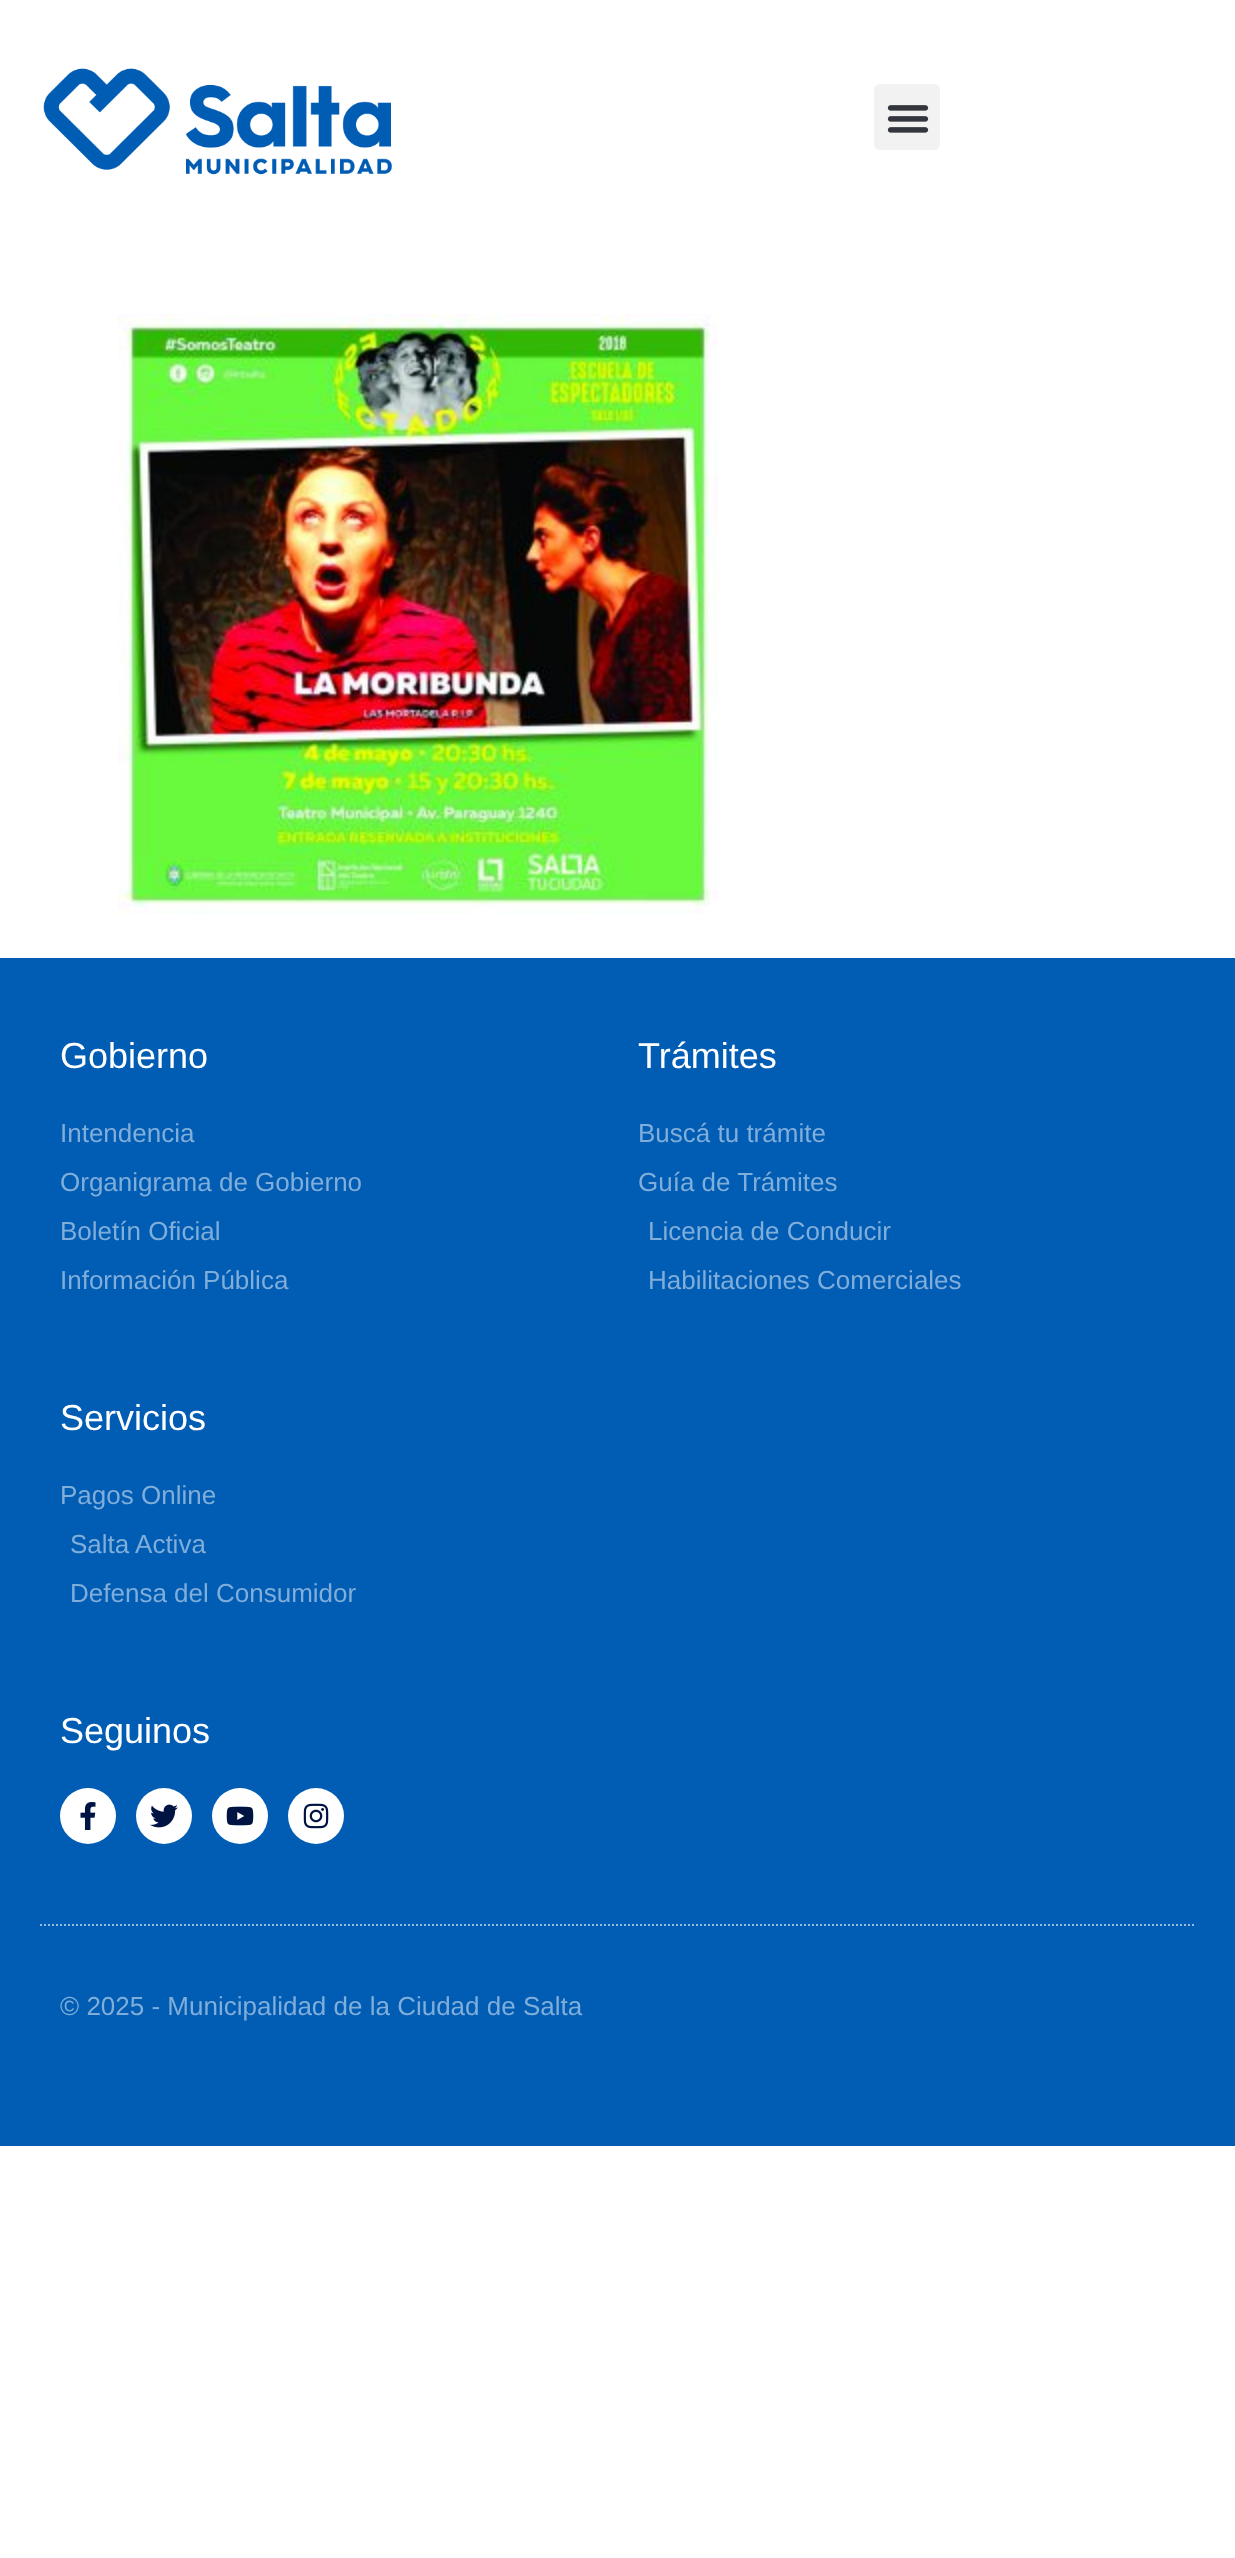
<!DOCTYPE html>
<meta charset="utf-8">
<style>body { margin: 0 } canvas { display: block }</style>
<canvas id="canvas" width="1235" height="2558"></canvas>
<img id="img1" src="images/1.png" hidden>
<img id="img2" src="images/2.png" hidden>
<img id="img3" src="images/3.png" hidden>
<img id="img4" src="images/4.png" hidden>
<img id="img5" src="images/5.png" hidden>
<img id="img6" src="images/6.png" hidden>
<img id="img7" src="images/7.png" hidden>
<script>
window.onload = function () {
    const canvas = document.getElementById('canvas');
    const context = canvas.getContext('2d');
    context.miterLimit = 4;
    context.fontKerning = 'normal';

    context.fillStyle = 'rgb(255, 255, 255)';
    context.fillRect(0, 0, 1235, 2558);
    context.drawImage(document.getElementById('img1'), 43, 68, 350, 107);
    context.fillStyle = 'rgb(242, 242, 242)';
    context.beginPath();
    context.roundRect(874, 84, 66, 66, 6);
    context.fill();
    context.drawImage(document.getElementById('img2'), 887, 105, 42, 28);
    context.drawImage(document.getElementById('img3'), 118, 314, 600, 600);
    context.fillStyle = 'rgb(1, 92, 180)';
    context.fillRect(0, 958, 1235, 1188);
    context.fillStyle = 'rgb(255, 255, 255)';
    context.beginPath();
    context.arc(88, 1816, 28, 0, 2 * Math.PI);
    context.fill();
    context.drawImage(document.getElementById('img4'), 80, 1802, 16, 28);
    context.beginPath();
    context.arc(164, 1816, 28, 0, 2 * Math.PI);
    context.fill();
    context.drawImage(document.getElementById('img5'), 150, 1804, 28, 24);
    context.beginPath();
    context.arc(240, 1816, 28, 0, 2 * Math.PI);
    context.fill();
    context.drawImage(document.getElementById('img6'), 226, 1806, 28, 20);
    context.beginPath();
    context.arc(316, 1816, 28, 0, 2 * Math.PI);
    context.fill();
    context.drawImage(document.getElementById('img7'), 303, 1803, 26, 26);
    context.beginPath();
    context.moveTo(40, 1925);
    context.lineTo(1196, 1925);
    context.strokeStyle = 'rgb(151, 188, 224)';
    context.lineWidth = 2;
    context.setLineDash([2, 2]);
    context.stroke();
    context.font = '36px Liberation Sans';
    context.fillText('Gobierno', 60, 1068);
    context.font = '26px Liberation Sans';
    context.fillStyle = 'rgb(128, 174, 218)';
    context.fillText('Intendencia', 60, 1142);
    context.fillText('Organigrama de Gobierno', 60, 1191);
    context.fillText('Boletín Oficial', 60, 1240);
    context.fillText('Información Pública', 60, 1289);
    context.font = '36px Liberation Sans';
    context.fillStyle = 'rgb(255, 255, 255)';
    context.fillText('Trámites', 638, 1068);
    context.font = '26px Liberation Sans';
    context.fillStyle = 'rgb(128, 174, 218)';
    context.fillText('Buscá tu trámite', 638, 1142);
    context.fillText('Guía de Trámites', 638, 1191);
    context.fillText('Licencia de Conducir', 648, 1240);
    context.fillText('Habilitaciones Comerciales', 648, 1289);
    context.font = '36px Liberation Sans';
    context.fillStyle = 'rgb(255, 255, 255)';
    context.fillText('Servicios', 60, 1430);
    context.font = '26px Liberation Sans';
    context.fillStyle = 'rgb(128, 174, 218)';
    context.fillText('Pagos Online', 60, 1504);
    context.fillText('Salta Activa', 70, 1553);
    context.fillText('Defensa del Consumidor', 70, 1602);
    context.font = '36px Liberation Sans';
    context.fillStyle = 'rgb(255, 255, 255)';
    context.fillText('Seguinos', 60, 1743);
    context.font = '26px Liberation Sans';
    context.fillStyle = 'rgb(128, 174, 218)';
    context.fillText('© 2025 - Municipalidad de la Ciudad de Salta', 60, 2015);
};
</script>
